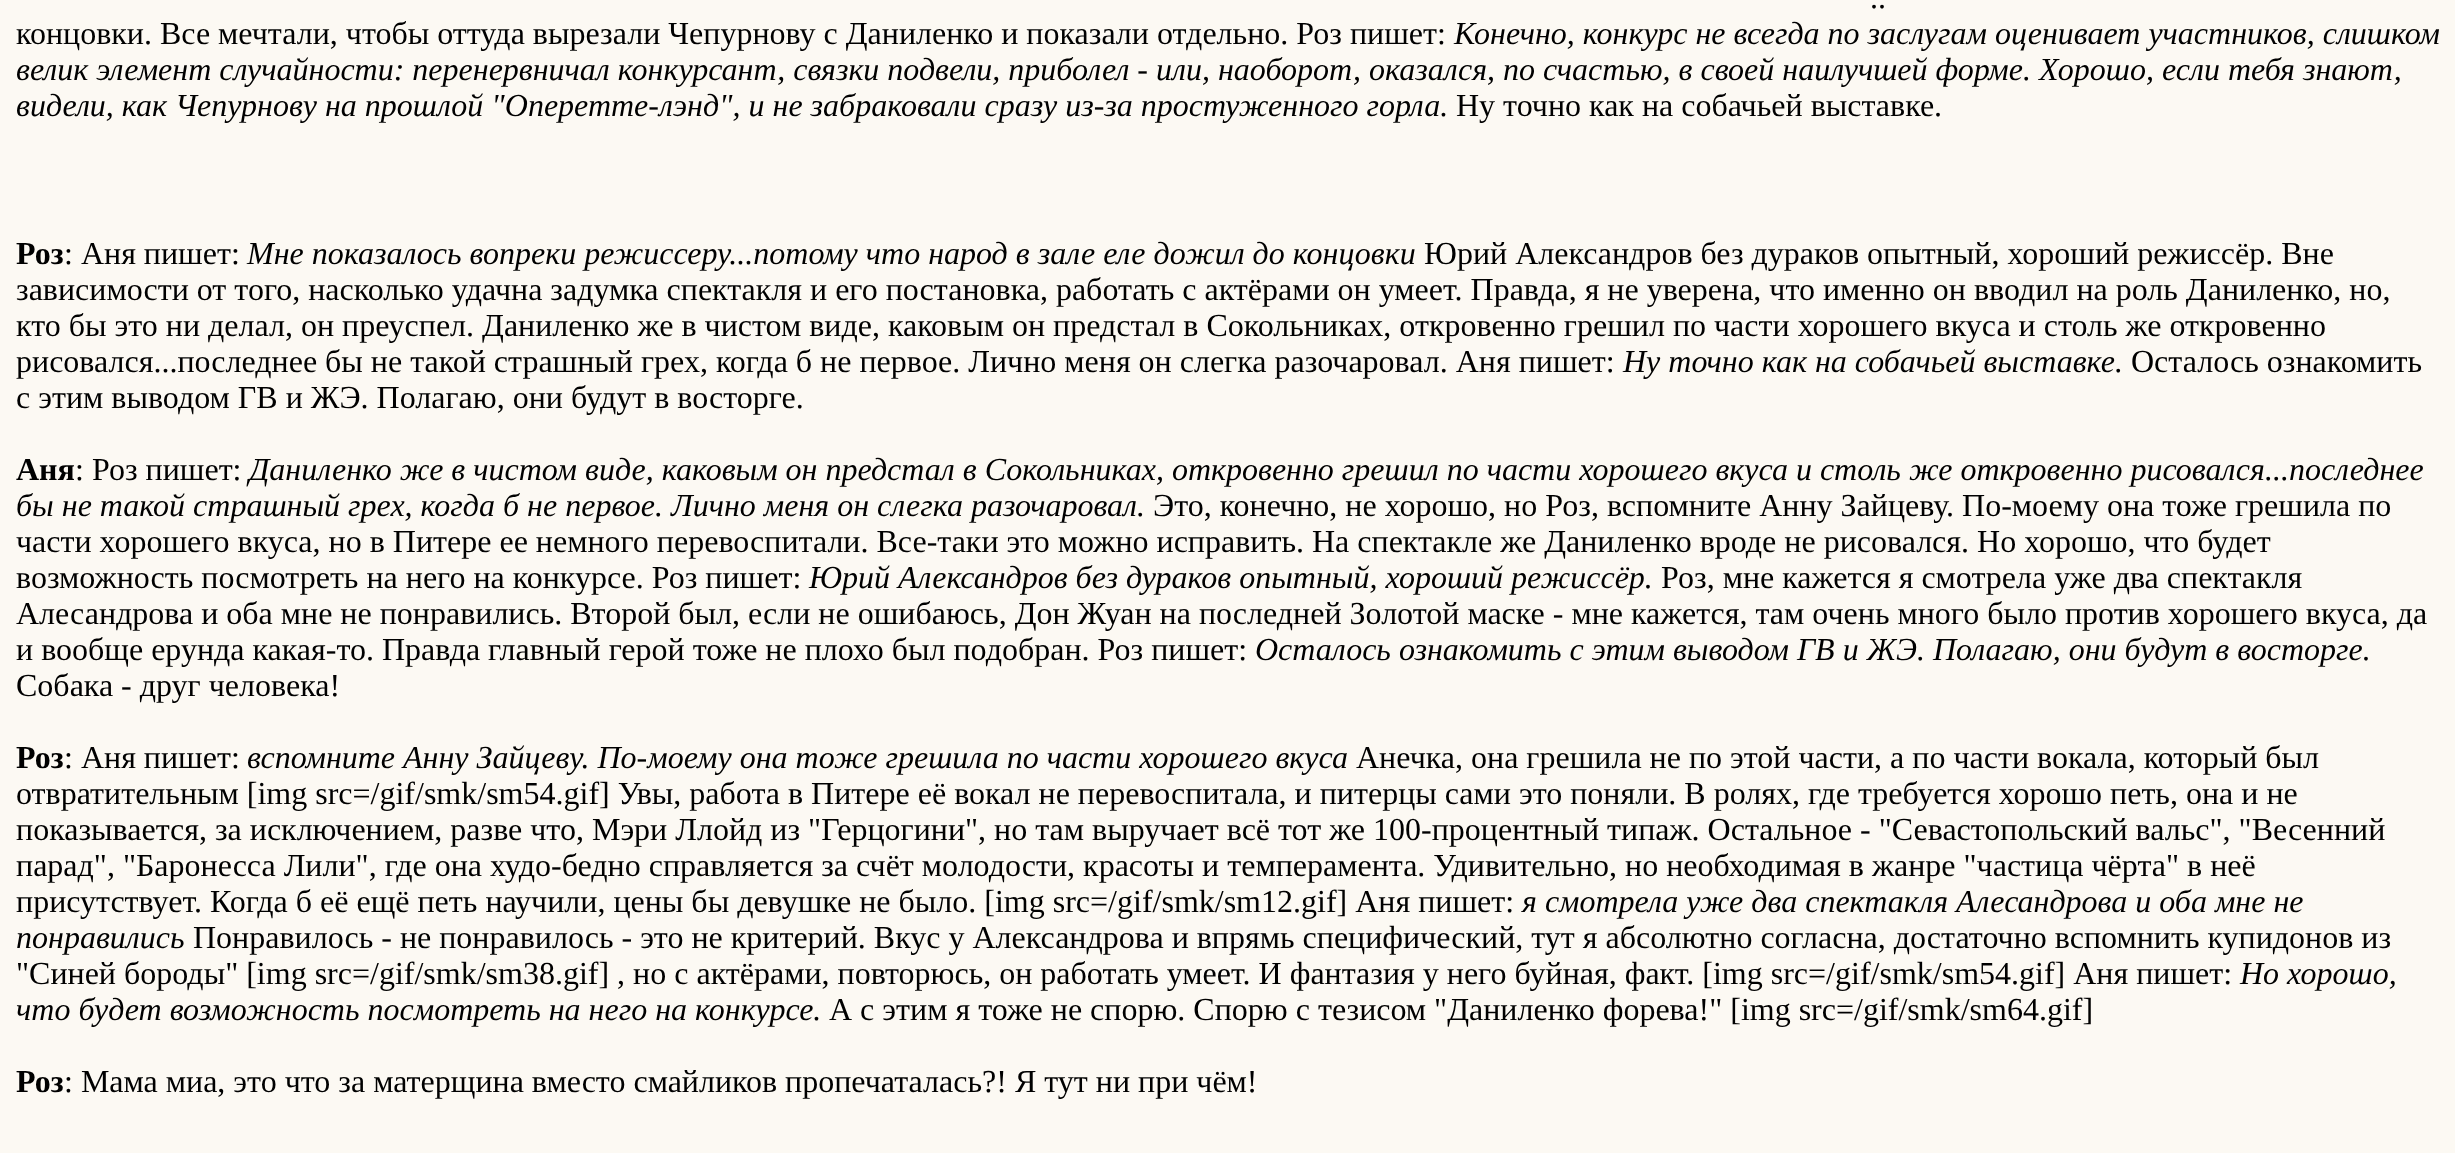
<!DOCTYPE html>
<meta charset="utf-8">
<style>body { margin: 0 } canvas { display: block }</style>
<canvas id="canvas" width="2455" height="1153"></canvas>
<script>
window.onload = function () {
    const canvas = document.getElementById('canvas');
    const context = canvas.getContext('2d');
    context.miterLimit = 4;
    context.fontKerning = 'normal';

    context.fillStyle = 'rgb(252, 249, 243)';
    context.fillRect(0, 0, 2455, 1153);
    context.font = '32px Liberation Serif';
    context.fillStyle = 'rgb(0, 0, 0)';
    context.fillText('..', 1870, 8);
    context.fillText('концовки. Все мечтали, чтобы оттуда вырезали Чепурнову с Даниленко и показали отдельно. Роз пишет:', 16, 44);
    context.font = 'italic 32px Liberation Serif';
    context.fillText('Конечно, конкурс не всегда по заслугам оценивает участников, слишком', 1454, 44);
    context.fillText('велик элемент случайности: перенервничал конкурсант, связки подвели, приболел - или, наоборот, оказался, по счастью, в своей наилучшей форме. Хорошо, если тебя знают,', 16, 80);
    context.fillText('видели, как Чепурнову на прошлой "Оперетте-лэнд", и не забраковали сразу из-за простуженного горла.', 16, 116);
    context.font = '32px Liberation Serif';
    context.fillText('Ну точно как на собачьей выставке.', 1456, 116);
    context.font = 'bold 32px Liberation Serif';
    context.fillText('Роз', 16, 264);
    context.font = '32px Liberation Serif';
    context.fillText(': Аня пишет:', 64, 264);
    context.font = 'italic 32px Liberation Serif';
    context.fillText('Мне показалось вопреки режиссеру...потому что народ в зале еле дожил до концовки', 247, 264);
    context.font = '32px Liberation Serif';
    context.fillText('Юрий Александров без дураков опытный, хороший режиссёр. Вне', 1424, 264);
    context.fillText('зависимости от того, насколько удачна задумка спектакля и его постановка, работать с актёрами он умеет. Правда, я не уверена, что именно он вводил на роль Даниленко, но,', 16, 300);
    context.fillText('кто бы это ни делал, он преуспел. Даниленко же в чистом виде, каковым он предстал в Сокольниках, откровенно грешил по части хорошего вкуса и столь же откровенно', 16, 336);
    context.fillText('рисовался...последнее бы не такой страшный грех, когда б не первое. Лично меня он слегка разочаровал. Аня пишет:', 16, 372);
    context.font = 'italic 32px Liberation Serif';
    context.fillText('Ну точно как на собачьей выставке.', 1623, 372);
    context.font = '32px Liberation Serif';
    context.fillText('Осталось ознакомить', 2131, 372);
    context.fillText('с этим выводом ГВ и ЖЭ. Полагаю, они будут в восторге.', 16, 408);
    context.font = 'bold 32px Liberation Serif';
    context.fillText('Аня', 16, 480);
    context.font = '32px Liberation Serif';
    context.fillText(': Роз пишет:', 75, 480);
    context.font = 'italic 32px Liberation Serif';
    context.fillText('Даниленко же в чистом виде, каковым он предстал в Сокольниках, откровенно грешил по части хорошего вкуса и столь же откровенно рисовался...последнее', 249, 480);
    context.fillText('бы не такой страшный грех, когда б не первое. Лично меня он слегка разочаровал.', 16, 516);
    context.font = '32px Liberation Serif';
    context.fillText('Это, конечно, не хорошо, но Роз, вспомните Анну Зайцеву. По-моему она тоже грешила по', 1153, 516);
    context.fillText('части хорошего вкуса, но в Питере ее немного перевоспитали. Все-таки это можно исправить. На спектакле же Даниленко вроде не рисовался. Но хорошо, что будет', 16, 552);
    context.fillText('возможность посмотреть на него на конкурсе. Роз пишет:', 16, 588);
    context.font = 'italic 32px Liberation Serif';
    context.fillText('Юрий Александров без дураков опытный, хороший режиссёр.', 809, 588);
    context.font = '32px Liberation Serif';
    context.fillText('Роз, мне кажется я смотрела уже два спектакля', 1661, 588);
    context.fillText('Алесандрова и оба мне не понравились. Второй был, если не ошибаюсь, Дон Жуан на последней Золотой маске - мне кажется, там очень много было против хорошего вкуса, да', 16, 624);
    context.fillText('и вообще ерунда какая-то. Правда главный герой тоже не плохо был подобран. Роз пишет:', 16, 660);
    context.font = 'italic 32px Liberation Serif';
    context.fillText('Осталось ознакомить с этим выводом ГВ и ЖЭ. Полагаю, они будут в восторге.', 1255, 660);
    context.font = '32px Liberation Serif';
    context.fillText('Собака - друг человека!', 16, 696);
    context.font = 'bold 32px Liberation Serif';
    context.fillText('Роз', 16, 768);
    context.font = '32px Liberation Serif';
    context.fillText(': Аня пишет:', 64, 768);
    context.font = 'italic 32px Liberation Serif';
    context.fillText('вспомните Анну Зайцеву. По-моему она тоже грешила по части хорошего вкуса', 247, 768);
    context.font = '32px Liberation Serif';
    context.fillText('Анечка, она грешила не по этой части, а по части вокала, который был', 1356, 768);
    context.fillText('отвратительным [img src=/gif/smk/sm54.gif] Увы, работа в Питере её вокал не перевоспитала, и питерцы сами это поняли. В ролях, где требуется хорошо петь, она и не', 16, 804);
    context.fillText('показывается, за исключением, разве что, Мэри Ллойд из "Герцогини", но там выручает всё тот же 100-процентный типаж. Остальное - "Севастопольский вальс", "Весенний', 16, 840);
    context.fillText('парад", "Баронесса Лили", где она худо-бедно справляется за счёт молодости, красоты и темперамента. Удивительно, но необходимая в жанре "частица чёрта" в неё', 16, 876);
    context.fillText('присутствует. Когда б её ещё петь научили, цены бы девушке не было. [img src=/gif/smk/sm12.gif] Аня пишет:', 16, 912);
    context.font = 'italic 32px Liberation Serif';
    context.fillText('я смотрела уже два спектакля Алесандрова и оба мне не', 1522, 912);
    context.fillText('понравились', 16, 948);
    context.font = '32px Liberation Serif';
    context.fillText('Понравилось - не понравилось - это не критерий. Вкус у Александрова и впрямь специфический, тут я абсолютно согласна, достаточно вспомнить купидонов из', 193, 948);
    context.fillText('"Синей бороды" [img src=/gif/smk/sm38.gif] , но с актёрами, повторюсь, он работать умеет. И фантазия у него буйная, факт. [img src=/gif/smk/sm54.gif] Аня пишет:', 16, 984);
    context.font = 'italic 32px Liberation Serif';
    context.fillText('Но хорошо,', 2240, 984);
    context.fillText('что будет возможность посмотреть на него на конкурсе.', 16, 1020);
    context.font = '32px Liberation Serif';
    context.fillText('А с этим я тоже не спорю. Спорю с тезисом "Даниленко форева!" [img src=/gif/smk/sm64.gif]', 829, 1020);
    context.font = 'bold 32px Liberation Serif';
    context.fillText('Роз', 16, 1092);
    context.font = '32px Liberation Serif';
    context.fillText(': Мама миа, это что за матерщина вместо смайликов пропечаталась?! Я тут ни при чём!', 64, 1092);
};
</script>
